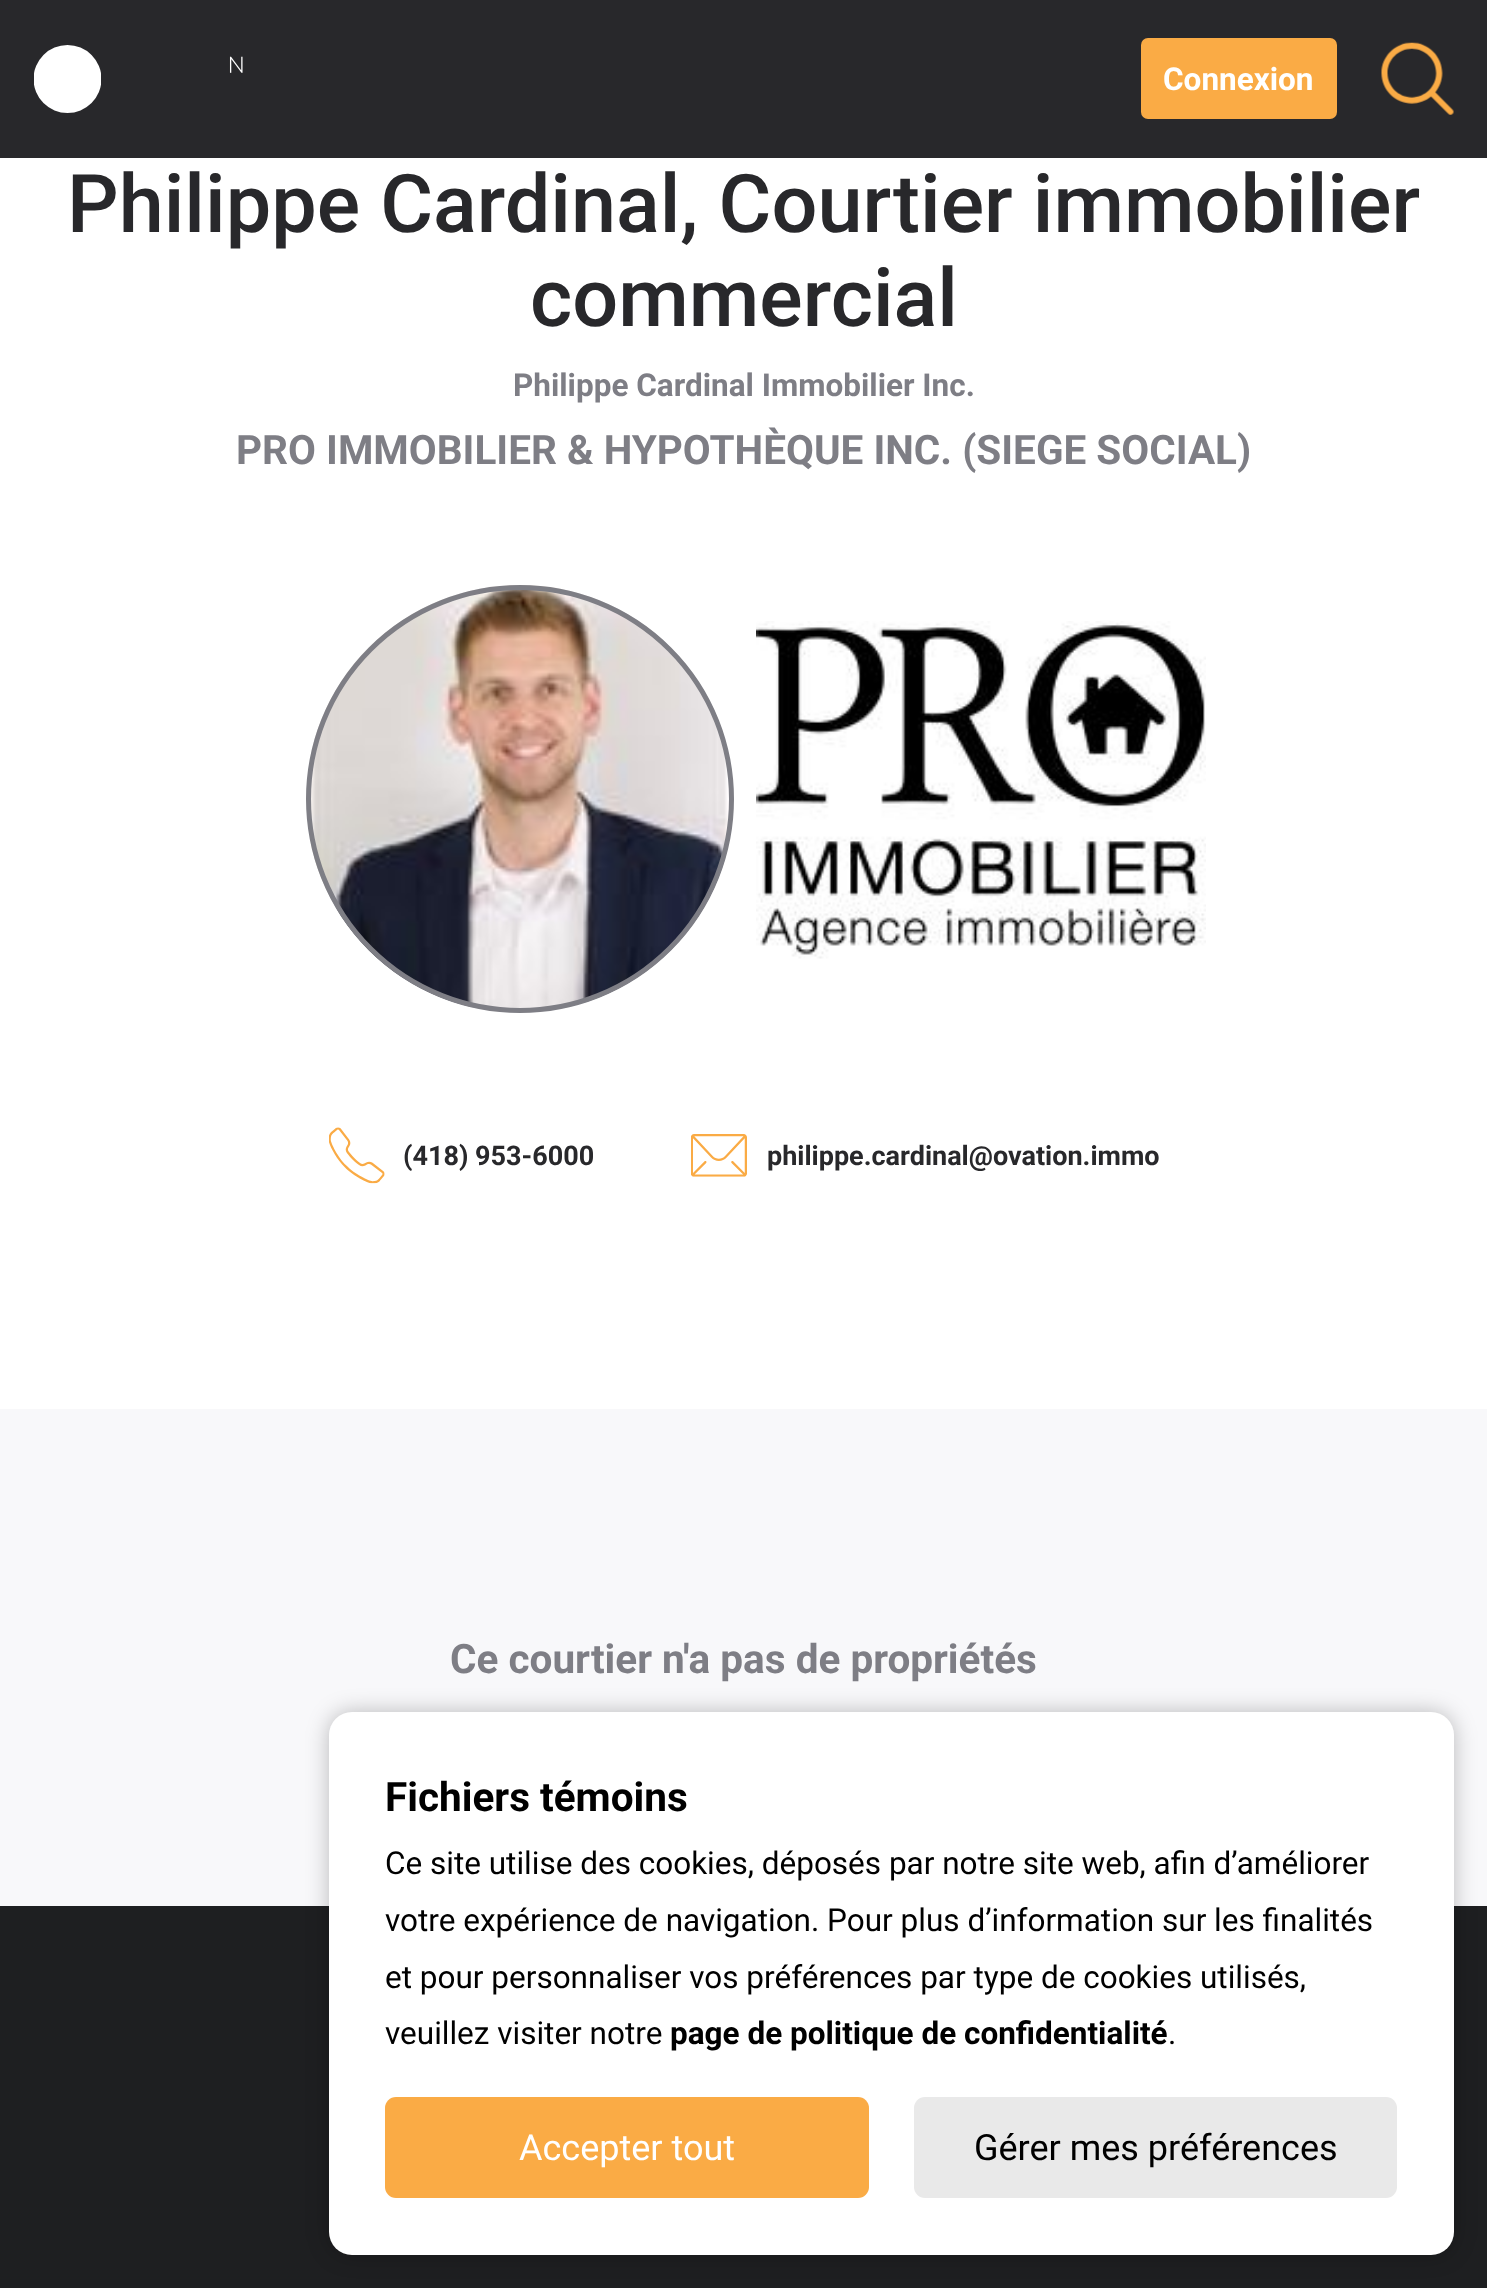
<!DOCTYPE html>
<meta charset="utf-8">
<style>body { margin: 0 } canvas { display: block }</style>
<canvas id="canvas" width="1487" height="2288"></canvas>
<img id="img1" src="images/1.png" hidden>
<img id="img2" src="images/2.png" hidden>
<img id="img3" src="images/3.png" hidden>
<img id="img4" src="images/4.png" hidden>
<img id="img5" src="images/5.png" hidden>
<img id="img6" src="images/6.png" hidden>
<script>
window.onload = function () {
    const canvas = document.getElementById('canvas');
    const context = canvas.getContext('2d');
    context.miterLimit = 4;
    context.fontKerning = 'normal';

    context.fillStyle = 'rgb(255, 255, 255)';
    context.fillRect(0, 0, 1487, 2288);
    context.fillStyle = 'rgb(40, 40, 43)';
    context.fillRect(0, 0, 1487, 158);
    context.save();
    context.beginPath();
    context.rect(34, 45, 67, 68);
    context.clip();
    context.fillStyle = 'rgb(255, 255, 255)';
    context.beginPath();
    context.arc(67.5, 79, 34, 0, 2 * Math.PI);
    context.fill();
    context.restore();
    context.drawImage(document.getElementById('img1'), 229, 56, 14, 17);
    context.fillStyle = 'rgb(250, 171, 69)';
    context.beginPath();
    context.roundRect(1141, 38, 196, 81, 7);
    context.fill();
    context.drawImage(document.getElementById('img2'), 1381, 42, 73, 73);
    context.drawImage(document.getElementById('img3'), 310, 585, 419, 428);
    context.beginPath();
    context.arc(520, 799, 211.5, 0, 2 * Math.PI);
    context.strokeStyle = 'rgb(126, 126, 133)';
    context.lineWidth = 5;
    context.stroke();
    context.drawImage(document.getElementById('img4'), 756, 621, 450, 338);
    context.drawImage(document.getElementById('img5'), 329, 1127, 56, 57);
    context.drawImage(document.getElementById('img6'), 691, 1134, 56, 43);
    context.fillStyle = 'rgb(248, 248, 250)';
    context.fillRect(0, 1409, 1487, 497);
    context.fillStyle = 'rgb(30, 31, 33)';
    context.fillRect(0, 1906, 1487, 382);
    context.fillStyle = 'rgba(0, 0, 0, 0.25)';
    context.filter = 'blur(11px)';
    context.beginPath();
    context.roundRect(329, 1712, 1125, 543, 23);
    context.fill();
    context.filter = 'none';
    context.fillStyle = 'rgb(255, 255, 255)';
    context.beginPath();
    context.roundRect(329, 1712, 1125, 543, 23);
    context.fill();
    context.fillStyle = 'rgb(250, 171, 69)';
    context.beginPath();
    context.roundRect(385, 2097, 484, 101, 11);
    context.fill();
    context.fillStyle = 'rgb(233, 233, 233)';
    context.beginPath();
    context.roundRect(914, 2097, 483, 101, 11);
    context.fill();
    context.font = 'bold 31.5px Roboto';
    context.fillStyle = 'rgb(255, 255, 255)';
    context.fillText('Connexion', 1163, 90);
    context.font = '500 81px Roboto';
    context.fillStyle = 'rgb(40, 40, 43)';
    context.fillText('Philippe Cardinal, Courtier immobilier', 67, 232);
    context.fillText('commercial', 530, 326);
    context.font = 'bold 31.5px Roboto';
    context.fillStyle = 'rgb(126, 126, 133)';
    context.fillText('Philippe Cardinal Immobilier Inc.', 513, 396);
    context.font = 'bold 40.5px Roboto';
    context.fillText('PRO IMMOBILIER & HYPOTHÈQUE INC. (SIEGE SOCIAL)', 236, 464);
    context.font = 'bold 27px Roboto';
    context.fillStyle = 'rgb(40, 40, 43)';
    context.fillText('(418) 953-6000', 403, 1165);
    context.fillText('philippe.cardinal@ovation.immo', 767, 1165);
    context.font = 'bold 40.5px Roboto';
    context.fillStyle = 'rgb(126, 126, 133)';
    context.fillText('Ce courtier n\'a pas de propriétés', 450, 1673);
    context.fillStyle = 'rgb(0, 0, 0)';
    context.fillText('Fichiers témoins', 385, 1811);
    context.font = '31.5px Roboto';
    context.fillText('Ce site utilise des cookies, déposés par notre site web, afin d’améliorer', 385, 1874);
    context.fillText('votre expérience de navigation. Pour plus d’information sur les finalités', 385, 1931);
    context.fillText('et pour personnaliser vos préférences par type de cookies utilisés,', 385, 1988);
    context.fillText('veuillez visiter notre', 385, 2044);
    context.font = 'bold 31.5px Roboto';
    context.fillText('page de politique de confidentialité', 670, 2044);
    context.font = '31.5px Roboto';
    context.fillText('.', 1168, 2044);
    context.font = '36px Roboto';
    context.fillStyle = 'rgb(255, 255, 255)';
    context.fillText('Accepter tout', 519, 2160);
    context.fillStyle = 'rgb(0, 0, 0)';
    context.fillText('Gérer mes préférences', 974, 2160);
};
</script>
